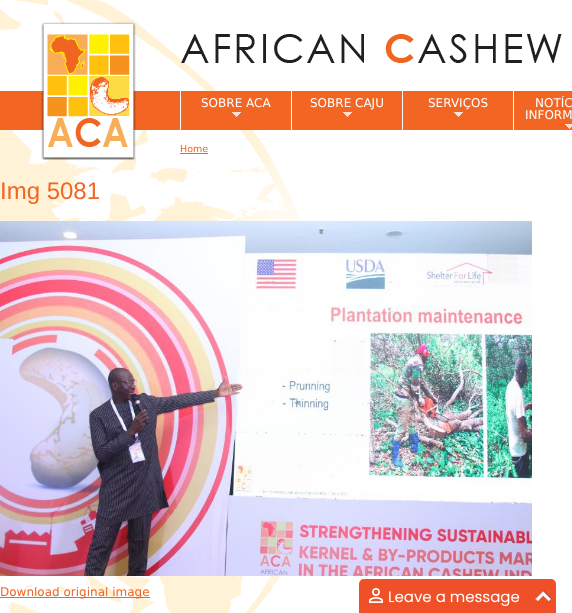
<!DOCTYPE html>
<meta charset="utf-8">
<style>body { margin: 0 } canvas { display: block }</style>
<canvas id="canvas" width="572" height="613"></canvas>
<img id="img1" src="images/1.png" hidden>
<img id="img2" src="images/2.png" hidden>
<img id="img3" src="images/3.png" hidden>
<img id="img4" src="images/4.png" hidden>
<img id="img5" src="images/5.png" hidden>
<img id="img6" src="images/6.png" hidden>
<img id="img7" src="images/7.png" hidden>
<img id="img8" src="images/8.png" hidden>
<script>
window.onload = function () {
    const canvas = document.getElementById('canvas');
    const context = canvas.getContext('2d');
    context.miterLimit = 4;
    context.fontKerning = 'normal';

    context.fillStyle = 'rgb(255, 255, 255)';
    context.fillRect(0, 0, 572, 613);
    context.drawImage(document.getElementById('img1'), 0, 0, 315, 613);
    context.fillStyle = 'rgb(242, 101, 35)';
    context.fillRect(0, 91, 572, 39);
    context.drawImage(document.getElementById('img2'), 41, 22, 95, 138);
    context.drawImage(document.getElementById('img3'), 181, 34, 381, 29);
    context.fillStyle = 'rgb(255, 255, 255)';
    context.fillRect(180, 91, 1, 39);
    context.drawImage(document.getElementById('img4'), 232, 112, 9, 5);
    context.fillRect(291, 91, 1, 39);
    context.drawImage(document.getElementById('img4'), 343, 112, 9, 5);
    context.fillRect(402, 91, 1, 39);
    context.drawImage(document.getElementById('img4'), 454, 112, 9, 5);
    context.fillRect(513, 91, 1, 39);
    context.drawImage(document.getElementById('img5'), 565, 124, 7, 5);
    context.fillStyle = 'rgb(242, 101, 34)';
    context.fillRect(180, 153, 28, 1);
    context.drawImage(document.getElementById('img6'), 0, 221, 532, 355);
    context.fillRect(0, 597, 150, 1);
    context.fillStyle = 'rgb(239, 80, 40)';
    context.beginPath();
    context.roundRect(359, 579, 197, 34, [5, 5, 0, 0]);
    context.fill();
    context.drawImage(document.getElementById('img7'), 369, 588, 14, 15);
    context.drawImage(document.getElementById('img8'), 535, 590, 16, 11);
    context.font = '12px DejaVu Sans';
    context.fillStyle = 'rgb(255, 255, 255)';
    context.fillText('SOBRE ACA', 201, 107);
    context.fillText('SOBRE CAJU', 310, 107);
    context.fillText('SERVIÇOS', 428, 107);
    context.fillText('NOTÍC', 535, 107);
    context.fillText('INFORM', 525, 119);
    context.font = '9.5px DejaVu Sans';
    context.fillStyle = 'rgb(242, 101, 34)';
    context.fillText('Home', 180, 152);
    context.font = '24px Liberation Sans';
    context.fillText('Img 5081', 0, 199);
    context.font = '12px DejaVu Sans';
    context.fillText('Download original image', 0, 596);
    context.font = '15px Poppins';
    context.fillStyle = 'rgb(255, 255, 255)';
    context.fillText('Leave a message', 388, 602);
};
</script>
